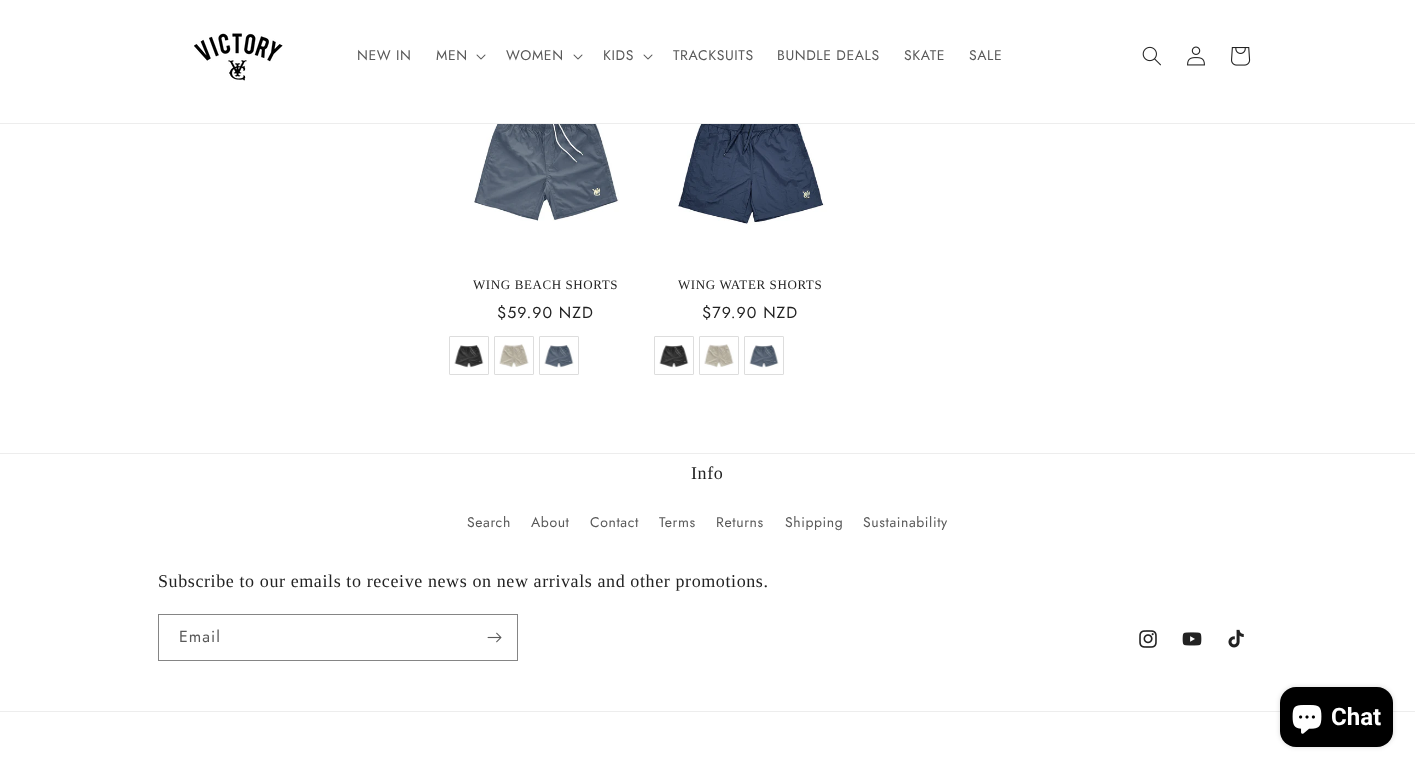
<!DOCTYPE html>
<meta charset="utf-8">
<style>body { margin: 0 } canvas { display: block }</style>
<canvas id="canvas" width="1415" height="768"></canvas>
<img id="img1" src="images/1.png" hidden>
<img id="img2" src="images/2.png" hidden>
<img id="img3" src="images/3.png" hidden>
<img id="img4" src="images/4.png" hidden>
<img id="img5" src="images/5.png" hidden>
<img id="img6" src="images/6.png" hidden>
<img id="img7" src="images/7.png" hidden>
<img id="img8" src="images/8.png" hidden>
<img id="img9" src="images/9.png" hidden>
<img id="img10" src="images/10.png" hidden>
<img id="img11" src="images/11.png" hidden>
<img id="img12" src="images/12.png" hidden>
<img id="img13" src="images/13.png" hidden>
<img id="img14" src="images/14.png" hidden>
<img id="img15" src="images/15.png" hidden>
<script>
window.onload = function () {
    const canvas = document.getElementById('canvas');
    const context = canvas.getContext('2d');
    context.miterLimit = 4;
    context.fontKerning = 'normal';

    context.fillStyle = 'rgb(255, 255, 255)';
    context.fillRect(0, 0, 1415, 768);
    context.fillStyle = 'rgb(237, 237, 237)';
    context.fillRect(0, 123, 1415, 1);
    context.drawImage(document.getElementById('img1'), 194, 33, 89, 48);
    context.drawImage(document.getElementById('img2'), 476, 54, 10, 6);
    context.drawImage(document.getElementById('img2'), 573, 54, 10, 6);
    context.drawImage(document.getElementById('img2'), 643, 54, 10, 6);
    context.drawImage(document.getElementById('img3'), 1142, 46, 19, 20);
    context.drawImage(document.getElementById('img4'), 1187, 46, 18, 20);
    context.drawImage(document.getElementById('img5'), 1231, 47, 20, 19);
    context.drawImage(document.getElementById('img6'), 448, 124, 196, 136);
    context.drawImage(document.getElementById('img7'), 454, 345, 30, 23);
    context.beginPath();
    context.roundRect(449.5, 336.5, 39, 38, 0.5);
    context.strokeStyle = 'rgb(221, 221, 221)';
    context.stroke();
    context.drawImage(document.getElementById('img8'), 499, 344, 30, 24);
    context.beginPath();
    context.roundRect(494.5, 336.5, 39, 38, 0.5);
    context.stroke();
    context.drawImage(document.getElementById('img9'), 544, 345, 30, 23);
    context.beginPath();
    context.roundRect(539.5, 336.5, 39, 38, 0.5);
    context.stroke();
    context.drawImage(document.getElementById('img10'), 652, 124, 197, 136);
    context.drawImage(document.getElementById('img7'), 659, 345, 30, 23);
    context.beginPath();
    context.roundRect(654.5, 336.5, 39, 38, 0.5);
    context.stroke();
    context.drawImage(document.getElementById('img8'), 704, 344, 30, 24);
    context.beginPath();
    context.roundRect(699.5, 336.5, 39, 38, 0.5);
    context.stroke();
    context.drawImage(document.getElementById('img9'), 749, 345, 30, 23);
    context.beginPath();
    context.roundRect(744.5, 336.5, 39, 38, 0.5);
    context.stroke();
    context.fillRect(0, 453, 1415, 1);
    context.strokeStyle = 'rgb(133, 133, 133)';
    context.strokeRect(158.5, 614.5, 359, 46);
    context.drawImage(document.getElementById('img11'), 487, 632, 15, 11);
    context.drawImage(document.getElementById('img12'), 1139, 630, 18, 18);
    context.drawImage(document.getElementById('img13'), 1182, 632, 20, 14);
    context.drawImage(document.getElementById('img14'), 1228, 629, 16, 19);
    context.fillRect(0, 711, 1415, 1);
    context.fillStyle = 'rgba(0, 0, 0, 0.15)';
    context.filter = 'blur(2.5px)';
    context.beginPath();
    context.roundRect(1280, 687, 113, 60, 16);
    context.fill();
    context.filter = 'none';
    context.fillStyle = 'rgb(0, 0, 0)';
    context.beginPath();
    context.roundRect(1280, 687, 113, 60, 16);
    context.fill();
    context.drawImage(document.getElementById('img15'), 1292, 705, 30, 29);
    context.letterSpacing = '0.6px';
    context.font = '14px Jost';
    context.fillStyle = 'rgb(89, 89, 89)';
    context.fillText('NEW IN', 357, 60);
    context.fillText('MEN', 436, 60);
    context.fillText('WOMEN', 506, 60);
    context.fillText('KIDS', 603, 60);
    context.fillText('TRACKSUITS', 673, 60);
    context.fillText('BUNDLE DEALS', 777, 60);
    context.fillText('SKATE', 904, 60);
    context.fillText('SALE', 969, 60);
    context.font = '13px Liberation Serif';
    context.fillStyle = 'rgb(34, 34, 34)';
    context.fillText('WING BEACH SHORTS', 473, 289);
    context.letterSpacing = '1px';
    context.font = '16px Jost';
    context.fillText('$59.90 NZD', 497, 318);
    context.letterSpacing = '0.6px';
    context.font = '13px Liberation Serif';
    context.fillText('WING WATER SHORTS', 678, 289);
    context.letterSpacing = '1px';
    context.font = '16px Jost';
    context.fillText('$79.90 NZD', 702, 318);
    context.letterSpacing = '0.6px';
    context.font = '18px Liberation Serif';
    context.fillText('Info', 691, 479);
    context.font = '14px Jost';
    context.fillStyle = 'rgb(89, 89, 89)';
    context.fillText('Search', 467, 527);
    context.fillText('About', 531, 527);
    context.fillText('Contact', 590, 527);
    context.fillText('Terms', 659, 527);
    context.fillText('Returns', 716, 527);
    context.fillText('Shipping', 785, 527);
    context.fillText('Sustainability', 863, 527);
    context.font = '18px Liberation Serif';
    context.fillStyle = 'rgb(34, 34, 34)';
    context.fillText('Subscribe to our emails to receive news on new arrivals and other promotions.', 158, 587);
    context.letterSpacing = '1px';
    context.font = '16px Jost';
    context.fillStyle = 'rgb(89, 89, 89)';
    context.fillText('Email', 179, 642);
    context.letterSpacing = '0px';
    context.font = 'bold 24px Roboto';
    context.fillStyle = 'rgb(255, 255, 255)';
    context.fillText('Chat', 1331, 725);
};
</script>
